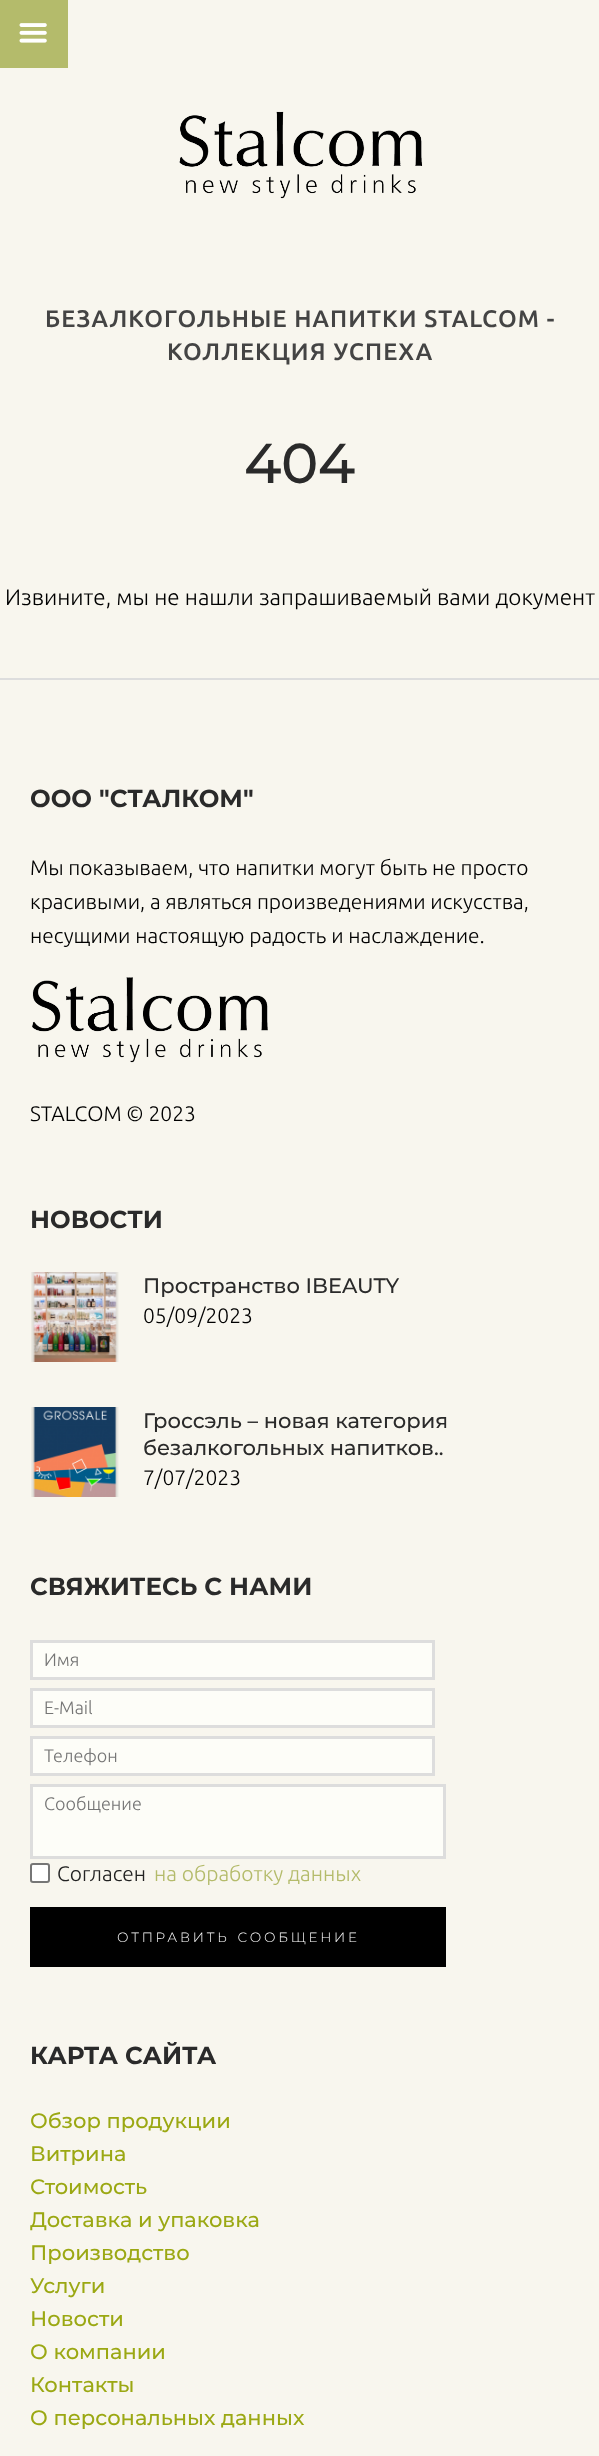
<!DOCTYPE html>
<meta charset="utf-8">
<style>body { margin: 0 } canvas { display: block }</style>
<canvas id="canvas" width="599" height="2456"></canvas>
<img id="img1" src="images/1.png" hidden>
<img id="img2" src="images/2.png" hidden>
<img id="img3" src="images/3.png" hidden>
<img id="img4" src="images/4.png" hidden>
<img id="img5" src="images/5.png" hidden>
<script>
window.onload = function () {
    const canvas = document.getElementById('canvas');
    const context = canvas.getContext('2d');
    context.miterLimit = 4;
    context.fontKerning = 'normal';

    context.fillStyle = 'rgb(248, 246, 238)';
    context.fillRect(0, 0, 599, 2456);
    context.fillStyle = 'rgb(180, 187, 107)';
    context.fillRect(0, 0, 68, 68);
    context.drawImage(document.getElementById('img1'), 19, 23, 28, 20);
    context.drawImage(document.getElementById('img2'), 179, 111, 244, 88);
    context.fillStyle = 'rgb(221, 221, 221)';
    context.fillRect(0, 678, 599, 2);
    context.drawImage(document.getElementById('img3'), 32, 977, 236, 86);
    context.drawImage(document.getElementById('img4'), 31, 1272, 88, 90);
    context.drawImage(document.getElementById('img5'), 31, 1407, 88, 90);
    context.fillStyle = 'rgb(253, 253, 248)';
    context.beginPath();
    context.rect(31.5, 1641.5, 402, 37);
    context.fill();
    context.strokeStyle = 'rgb(221, 221, 221)';
    context.lineWidth = 3;
    context.stroke();
    context.beginPath();
    context.rect(31.5, 1689.5, 402, 37);
    context.fill();
    context.stroke();
    context.beginPath();
    context.rect(31.5, 1737.5, 402, 37);
    context.fill();
    context.stroke();
    context.beginPath();
    context.rect(31.5, 1785.5, 413, 72);
    context.fill();
    context.stroke();
    context.fillStyle = 'rgb(255, 255, 255)';
    context.beginPath();
    context.roundRect(31, 1864, 18, 18, 2);
    context.fill();
    context.strokeStyle = 'rgb(118, 118, 118)';
    context.lineWidth = 2;
    context.stroke();
    context.fillStyle = 'rgb(0, 0, 0)';
    context.fillRect(30, 1907, 416, 60);
    context.letterSpacing = '1.05px';
    context.font = '500 24px Ubuntu';
    context.fillStyle = 'rgb(68, 68, 68)';
    context.fillText('БЕЗАЛКОГОЛЬНЫЕ НАПИТКИ STALCOM -', 45, 327);
    context.fillText('КОЛЛЕКЦИЯ УСПЕХА', 167, 360);
    context.letterSpacing = '-0.5px';
    context.font = '500 56px Montserrat';
    context.fillStyle = 'rgb(42, 42, 42)';
    context.fillText('404', 244, 483);
    context.letterSpacing = '0px';
    context.font = '300 22.5px Ubuntu';
    context.fillStyle = 'rgb(0, 0, 0)';
    context.fillText('Извините, мы не нашли запрашиваемый вами документ', 5, 605);
    context.font = 'bold 24.5px Montserrat';
    context.fillStyle = 'rgb(42, 42, 42)';
    context.fillText('OOO "СТАЛКОМ"', 30, 807);
    context.font = '300 21px Ubuntu';
    context.fillStyle = 'rgb(0, 0, 0)';
    context.fillText('Мы показываем, что напитки могут быть не просто', 30, 875);
    context.fillText('красивыми, а являться произведениями искусства,', 30, 909);
    context.fillText('несущими настоящую радость и наслаждение.', 30, 943);
    context.fillText('STALCOM © 2023', 30, 1121);
    context.font = 'bold 24.5px Montserrat';
    context.fillStyle = 'rgb(42, 42, 42)';
    context.fillText('НОВОСТИ', 30, 1228);
    context.font = '500 21px Montserrat';
    context.fillText('Пространство IBEAUTY', 143, 1293);
    context.font = '300 21px Ubuntu';
    context.fillStyle = 'rgb(0, 0, 0)';
    context.fillText('05/09/2023', 143, 1323);
    context.font = '500 21px Montserrat';
    context.fillStyle = 'rgb(42, 42, 42)';
    context.fillText('Гроссэль – новая категория', 143, 1428);
    context.fillText('безалкогольных напитков..', 143, 1455);
    context.font = '300 21px Ubuntu';
    context.fillStyle = 'rgb(0, 0, 0)';
    context.fillText('7/07/2023', 143, 1485);
    context.font = 'bold 24.5px Montserrat';
    context.fillStyle = 'rgb(42, 42, 42)';
    context.fillText('СВЯЖИТЕСЬ С НАМИ', 30, 1595);
    context.font = '300 18px Ubuntu';
    context.fillStyle = 'rgb(117, 117, 117)';
    context.fillText('Имя', 44, 1666);
    context.fillText('E-Mail', 44, 1714);
    context.fillText('Телефон', 44, 1762);
    context.fillText('Сообщение', 44, 1810);
    context.font = '300 21px Ubuntu';
    context.fillStyle = 'rgb(34, 34, 34)';
    context.fillText('Согласен', 57, 1881);
    context.fillStyle = 'rgb(180, 187, 107)';
    context.fillText('на обработку данных', 154, 1881);
    context.letterSpacing = '2.75px';
    context.wordSpacing = '2px';
    context.font = '300 13.5px Montserrat';
    context.fillStyle = 'rgb(255, 255, 255)';
    context.fillText('ОТПРАВИТЬ СООБЩЕНИЕ', 117, 1942);
    context.letterSpacing = '0px';
    context.wordSpacing = '0px';
    context.font = 'bold 24.5px Montserrat';
    context.fillStyle = 'rgb(42, 42, 42)';
    context.fillText('КАРТА САЙТА', 30, 2064);
    context.font = '500 21px Montserrat';
    context.fillStyle = 'rgb(155, 168, 19)';
    context.fillText('Обзор продукции', 30, 2128);
    context.fillText('Витрина', 30, 2161);
    context.fillText('Стоимость', 30, 2194);
    context.fillText('Доставка и упаковка', 30, 2227);
    context.fillText('Производство', 30, 2260);
    context.fillText('Услуги', 30, 2293);
    context.fillText('Новости', 30, 2326);
    context.fillText('О компании', 30, 2359);
    context.fillText('Контакты', 30, 2392);
    context.fillText('О персональных данных', 30, 2425);
};
</script>
